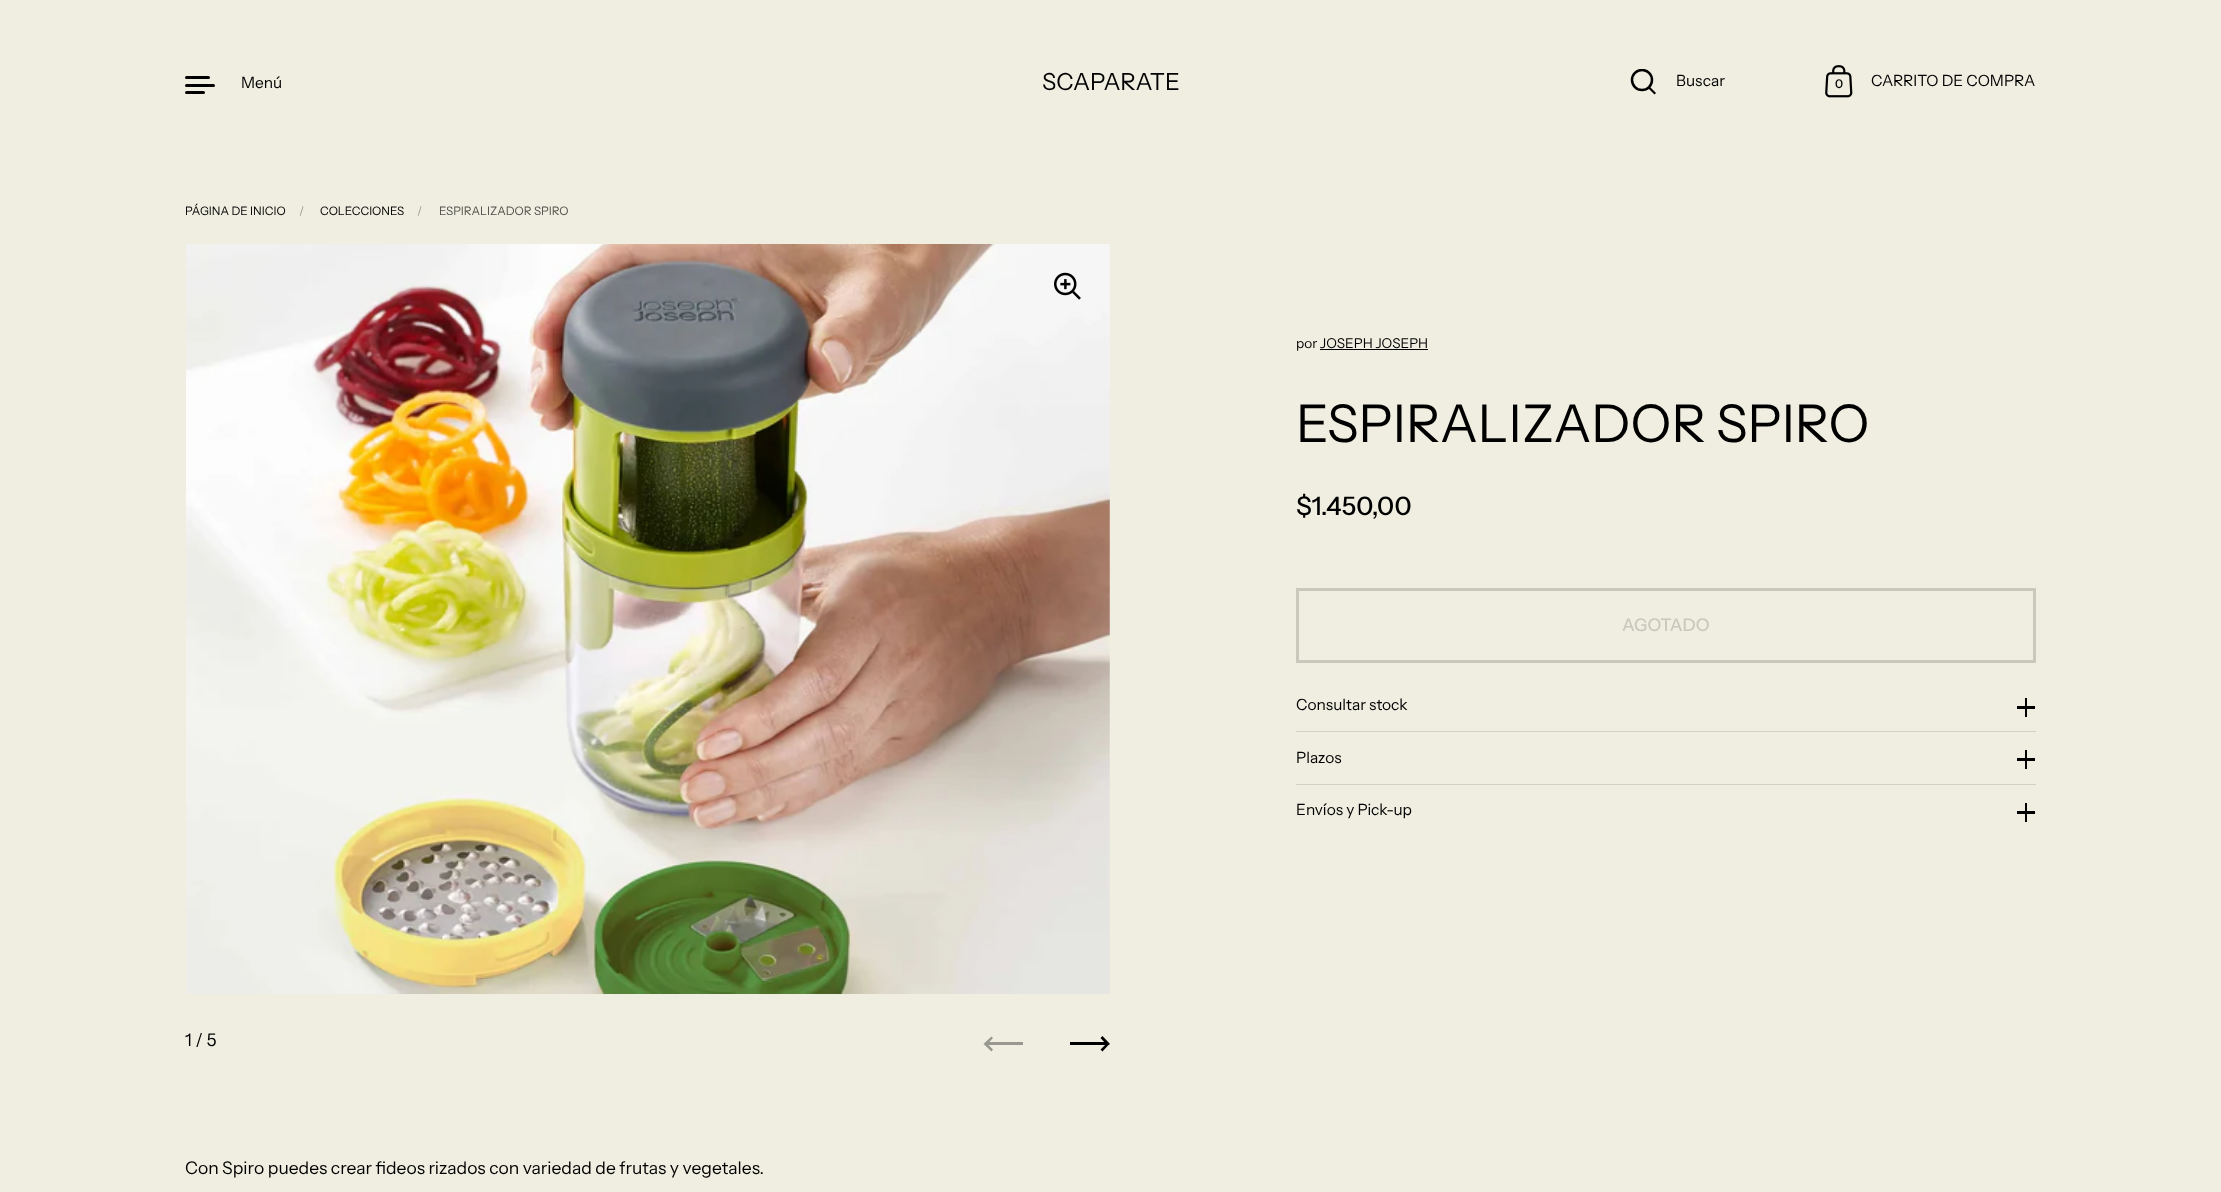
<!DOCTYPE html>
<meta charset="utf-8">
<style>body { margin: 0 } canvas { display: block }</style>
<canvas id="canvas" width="2221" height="1192"></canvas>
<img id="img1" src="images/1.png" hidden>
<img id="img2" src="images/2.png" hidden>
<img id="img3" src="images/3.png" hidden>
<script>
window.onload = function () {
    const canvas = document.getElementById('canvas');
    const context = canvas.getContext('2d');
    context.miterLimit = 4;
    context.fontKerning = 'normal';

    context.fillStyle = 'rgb(239, 238, 225)';
    context.fillRect(0, 0, 2221, 1192);
    context.fillStyle = 'rgb(0, 0, 0)';
    context.beginPath();
    context.roundRect(185, 76, 25, 3, 1.5);
    context.fill();
    context.beginPath();
    context.roundRect(185, 84, 30, 3, 1.5);
    context.fill();
    context.beginPath();
    context.roundRect(185, 91, 20, 3, 1.5);
    context.fill();
    context.save();
    context.beginPath();
    context.rect(1630, 69, 28, 26);
    context.clip();
    context.beginPath();
    context.arc(1642, 80, 10, 0, 2 * Math.PI);
    context.strokeStyle = 'rgb(0, 0, 0)';
    context.lineWidth = 2.5;
    context.stroke();
    context.restore();
    context.beginPath();
    context.moveTo(1648.5, 88.5);
    context.lineTo(1650, 87);
    context.lineTo(1656, 93);
    context.lineTo(1654.5, 94.5);
    context.closePath();
    context.fill();
    context.drawImage(document.getElementById('img1'), 1825, 65, 28, 33);
    context.fillRect(1320, 349, 108, 1);
    context.strokeStyle = 'rgb(201, 200, 189)';
    context.lineWidth = 3;
    context.strokeRect(1297.5, 589.5, 737, 72);
    context.fillRect(2017, 706, 18, 3);
    context.fillRect(2025, 698, 2, 19);
    context.fillStyle = 'rgb(210, 209, 198)';
    context.fillRect(1296, 731, 740, 1);
    context.fillStyle = 'rgb(0, 0, 0)';
    context.fillRect(2017, 758, 18, 3);
    context.fillRect(2025, 750, 2, 19);
    context.fillStyle = 'rgb(210, 209, 198)';
    context.fillRect(1296, 784, 740, 1);
    context.fillStyle = 'rgb(0, 0, 0)';
    context.fillRect(2017, 811, 18, 3);
    context.fillRect(2025, 803, 2, 19);
    context.drawImage(document.getElementById('img2'), 186, 244, 924, 750);
    context.drawImage(document.getElementById('img3'), 1054, 272, 27, 28);
    context.fillStyle = 'rgb(153, 152, 144)';
    context.fillRect(986, 1042, 37, 3);
    context.beginPath();
    context.moveTo(983.5, 1044);
    context.lineTo(991.5, 1051.5);
    context.lineTo(993, 1049.5);
    context.lineTo(987.5, 1044);
    context.lineTo(993, 1038);
    context.lineTo(991.5, 1036.5);
    context.lineTo(985.5, 1042);
    context.closePath();
    context.fill();
    context.fillStyle = 'rgb(0, 0, 0)';
    context.fillRect(1070, 1042, 38, 3);
    context.beginPath();
    context.moveTo(1110, 1044);
    context.lineTo(1102.5, 1036);
    context.lineTo(1100.5, 1038);
    context.lineTo(1106, 1044);
    context.lineTo(1100.5, 1049.5);
    context.lineTo(1102.5, 1051.5);
    context.lineTo(1108, 1045.5);
    context.closePath();
    context.fill();
    context.font = '15.5px Instrument Sans';
    context.fillText('Menú', 241, 88);
    context.font = '23.5px Instrument Sans';
    context.fillText('SCAPARATE', 1042, 90);
    context.font = '15.5px Instrument Sans';
    context.fillText('Buscar', 1676, 86);
    context.font = '500 12px Instrument Sans';
    context.fillText('0', 1835, 88);
    context.font = '15.5px Instrument Sans';
    context.fillText('CARRITO DE COMPRA', 1871, 86);
    context.font = '11.75px Instrument Sans';
    context.fillText('PÁGINA DE INICIO', 185, 215);
    context.fillStyle = 'rgb(153, 152, 144)';
    context.fillText('/', 299, 215);
    context.fillStyle = 'rgb(0, 0, 0)';
    context.fillText('COLECCIONES', 320, 215);
    context.fillStyle = 'rgb(153, 152, 144)';
    context.fillText('/', 417, 215);
    context.fillStyle = 'rgb(81, 81, 77)';
    context.fillText('ESPIRALIZADOR SPIRO', 439, 215);
    context.font = '13.6px Instrument Sans';
    context.fillStyle = 'rgb(0, 0, 0)';
    context.fillText('por JOSEPH JOSEPH', 1296, 348);
    context.font = '52px Instrument Sans';
    context.fillText('ESPIRALIZADOR SPIRO', 1296, 442);
    context.font = '500 25.5px Instrument Sans';
    context.fillText('$1.450,00', 1296, 515);
    context.font = '500 17.5px Instrument Sans';
    context.fillStyle = 'rgb(201, 200, 189)';
    context.fillText('AGOTADO', 1622, 631);
    context.font = '15.5px Instrument Sans';
    context.fillStyle = 'rgb(0, 0, 0)';
    context.fillText('Consultar stock', 1296, 710);
    context.fillText('Plazos', 1296, 763);
    context.fillText('Envíos y Pick-up', 1296, 815);
    context.font = '17.5px Instrument Sans';
    context.fillText('1 / 5', 185, 1046);
    context.fillText('Con Spiro puedes crear fideos rizados con variedad de frutas y vegetales.', 185, 1174);
};
</script>
